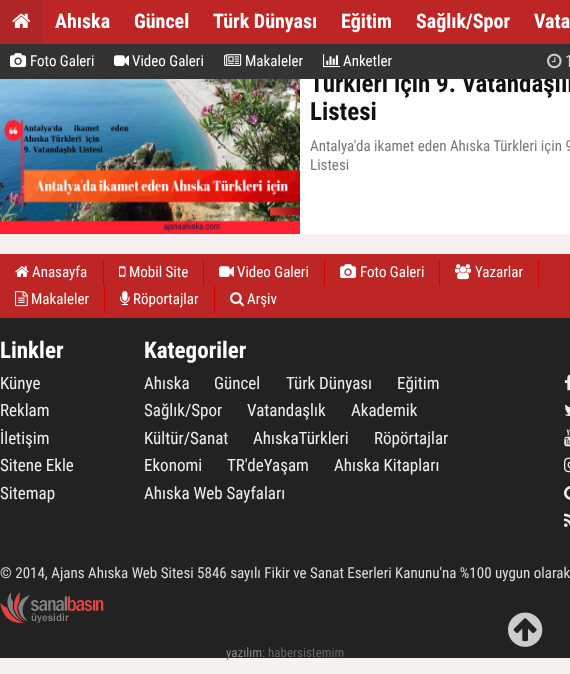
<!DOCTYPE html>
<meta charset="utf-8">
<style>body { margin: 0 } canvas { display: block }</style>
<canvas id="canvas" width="570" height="674"></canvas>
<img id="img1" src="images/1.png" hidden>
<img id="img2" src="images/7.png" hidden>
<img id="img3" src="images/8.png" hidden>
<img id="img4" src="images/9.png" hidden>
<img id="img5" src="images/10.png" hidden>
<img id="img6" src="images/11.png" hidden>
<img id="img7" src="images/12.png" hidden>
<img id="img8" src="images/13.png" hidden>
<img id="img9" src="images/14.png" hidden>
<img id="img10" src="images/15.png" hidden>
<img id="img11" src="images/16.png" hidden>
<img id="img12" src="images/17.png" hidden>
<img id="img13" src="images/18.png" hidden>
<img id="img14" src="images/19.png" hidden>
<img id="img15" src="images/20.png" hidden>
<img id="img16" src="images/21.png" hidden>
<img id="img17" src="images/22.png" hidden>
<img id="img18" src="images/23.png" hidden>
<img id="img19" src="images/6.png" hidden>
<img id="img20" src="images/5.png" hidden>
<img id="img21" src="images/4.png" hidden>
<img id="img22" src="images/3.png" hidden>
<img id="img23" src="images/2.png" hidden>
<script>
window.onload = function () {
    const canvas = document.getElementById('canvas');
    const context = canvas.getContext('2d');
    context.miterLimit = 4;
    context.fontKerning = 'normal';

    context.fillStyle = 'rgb(246, 241, 239)';
    context.fillRect(0, 0, 570, 674);
    context.fillStyle = 'rgb(190, 38, 38)';
    context.fillRect(43, 0, 527, 44);
    context.fillStyle = 'rgb(176, 38, 38)';
    context.fillRect(0, 0, 43, 44);
    context.drawImage(document.getElementById('img1'), 12, 13, 19, 15);
    context.fillStyle = 'rgb(255, 255, 255)';
    context.fillRect(300, 79, 270, 155);
    context.drawImage(document.getElementById('img2'), 0, 79, 300, 155);
    context.fillStyle = 'rgb(34, 34, 34)';
    context.fillRect(0, 318, 570, 340);
    context.fillStyle = 'rgb(190, 38, 38)';
    context.fillRect(0, 254, 570, 64);
    context.fillStyle = 'rgb(218, 0, 0)';
    context.fillRect(103, 259, 1, 27);
    context.drawImage(document.getElementById('img3'), 15, 266, 14, 11);
    context.fillRect(203, 259, 1, 27);
    context.drawImage(document.getElementById('img4'), 119, 266, 7, 11);
    context.fillRect(324, 259, 1, 27);
    context.drawImage(document.getElementById('img5'), 219, 266, 15, 11);
    context.fillRect(439, 259, 1, 27);
    context.drawImage(document.getElementById('img6'), 340, 264, 17, 15);
    context.fillRect(538, 259, 1, 27);
    context.drawImage(document.getElementById('img7'), 455, 264, 17, 16);
    context.fillRect(104, 286, 1, 27);
    context.drawImage(document.getElementById('img8'), 15, 291, 13, 16);
    context.fillRect(214, 286, 1, 27);
    context.drawImage(document.getElementById('img9'), 120, 291, 10, 15);
    context.drawImage(document.getElementById('img10'), 230, 292, 14, 15);
    context.drawImage(document.getElementById('img11'), 564, 374, 6, 17);
    context.drawImage(document.getElementById('img12'), 564, 404, 6, 12);
    context.drawImage(document.getElementById('img13'), 564, 429, 6, 18);
    context.drawImage(document.getElementById('img14'), 564, 457, 6, 16);
    context.drawImage(document.getElementById('img15'), 564, 486, 6, 14);
    context.drawImage(document.getElementById('img16'), 564, 513, 6, 14);
    context.drawImage(document.getElementById('img17'), 0, 592, 104, 31);
    context.drawImage(document.getElementById('img18'), 508, 612, 35, 35);
    context.font = 'bold 20px Roboto Condensed';
    context.fillStyle = 'rgb(255, 255, 255)';
    context.fillText('Ahıska', 55, 28);
    context.fillText('Güncel', 134, 28);
    context.fillText('Türk Dünyası', 213, 28);
    context.fillText('Eğitim', 341, 28);
    context.fillText('Sağlık/Spor', 416, 28);
    context.fillText('Vata', 534, 28);
    context.font = 'bold 25px Roboto Condensed';
    context.fillStyle = 'rgb(17, 17, 17)';
    context.fillText('Türkleri için 9. Vatandaşlık', 310, 92);
    context.fillStyle = 'rgb(51, 51, 51)';
    context.fillRect(0, 44, 570, 35);
    context.font = '17px Roboto Condensed';
    context.fillStyle = 'rgb(204, 204, 204)';
    context.fillText('1', 565, 67);
    context.drawImage(document.getElementById('img19'), 547, 53, 15, 16);
    context.font = '15px Roboto Condensed';
    context.fillStyle = 'rgb(255, 255, 255)';
    context.fillText('Anketler', 343, 66);
    context.drawImage(document.getElementById('img20'), 323, 54, 18, 14);
    context.fillText('Makaleler', 245, 66);
    context.drawImage(document.getElementById('img21'), 224, 54, 18, 12);
    context.fillText('Video Galeri', 132, 66);
    context.drawImage(document.getElementById('img22'), 114, 55, 15, 11);
    context.fillText('Foto Galeri', 30, 66);
    context.drawImage(document.getElementById('img23'), 10, 53, 17, 15);
    context.font = 'bold 25px Roboto Condensed';
    context.fillStyle = 'rgb(17, 17, 17)';
    context.fillText('Listesi', 310, 120);
    context.font = '15px Roboto Condensed';
    context.fillStyle = 'rgb(119, 119, 119)';
    context.fillText('Antalya\'da ikamet eden Ahıska Türkleri için 9', 310, 151);
    context.fillText('Listesi', 310, 170);
    context.fillStyle = 'rgb(255, 255, 255)';
    context.fillText('Anasayfa', 32, 277);
    context.fillText('Mobil Site', 129, 277);
    context.fillText('Video Galeri', 237, 277);
    context.fillText('Foto Galeri', 360, 277);
    context.fillText('Yazarlar', 475, 277);
    context.fillText('Makaleler', 31, 304);
    context.fillText('Röportajlar', 133, 304);
    context.fillText('Arşiv', 247, 304);
    context.font = 'bold 23px Roboto Condensed';
    context.fillText('Linkler', 0, 358);
    context.font = '17px Roboto Condensed';
    context.fillStyle = 'rgb(238, 238, 238)';
    context.fillText('Künye', 0, 389);
    context.fillText('Reklam', 0, 416);
    context.fillText('İletişim', 0, 444);
    context.fillText('Sitene Ekle', 0, 471);
    context.fillText('Sitemap', 0, 499);
    context.font = 'bold 23px Roboto Condensed';
    context.fillStyle = 'rgb(255, 255, 255)';
    context.fillText('Kategoriler', 144, 358);
    context.font = '17px Roboto Condensed';
    context.fillStyle = 'rgb(238, 238, 238)';
    context.fillText('Ahıska', 144, 389);
    context.fillText('Güncel', 214, 389);
    context.fillText('Türk Dünyası', 286, 389);
    context.fillText('Eğitim', 397, 389);
    context.fillText('Sağlık/Spor', 144, 416);
    context.fillText('Vatandaşlık', 247, 416);
    context.fillText('Akademik', 351, 416);
    context.fillText('Kültür/Sanat', 144, 444);
    context.fillText('AhıskaTürkleri', 253, 444);
    context.fillText('Röpörtajlar', 374, 444);
    context.fillText('Ekonomi', 144, 471);
    context.fillText('TR\'deYaşam', 227, 471);
    context.fillText('Ahıska Kitapları', 334, 471);
    context.fillText('Ahıska Web Sayfaları', 144, 499);
    context.font = '15px Roboto Condensed';
    context.fillStyle = 'rgb(221, 221, 221)';
    context.fillText('© 2014, Ajans Ahıska Web Sitesi 5846 sayılı Fikir ve Sanat Eserleri Kanunu\'na %100 uygun olarak', 0, 578);
    context.font = '13px Roboto Condensed';
    context.fillStyle = 'rgb(136, 136, 136)';
    context.fillText('yazılım', 226, 657);
    context.fillStyle = 'rgb(102, 102, 102)';
    context.fillText(': habersistemim', 262, 657);
};
</script>
